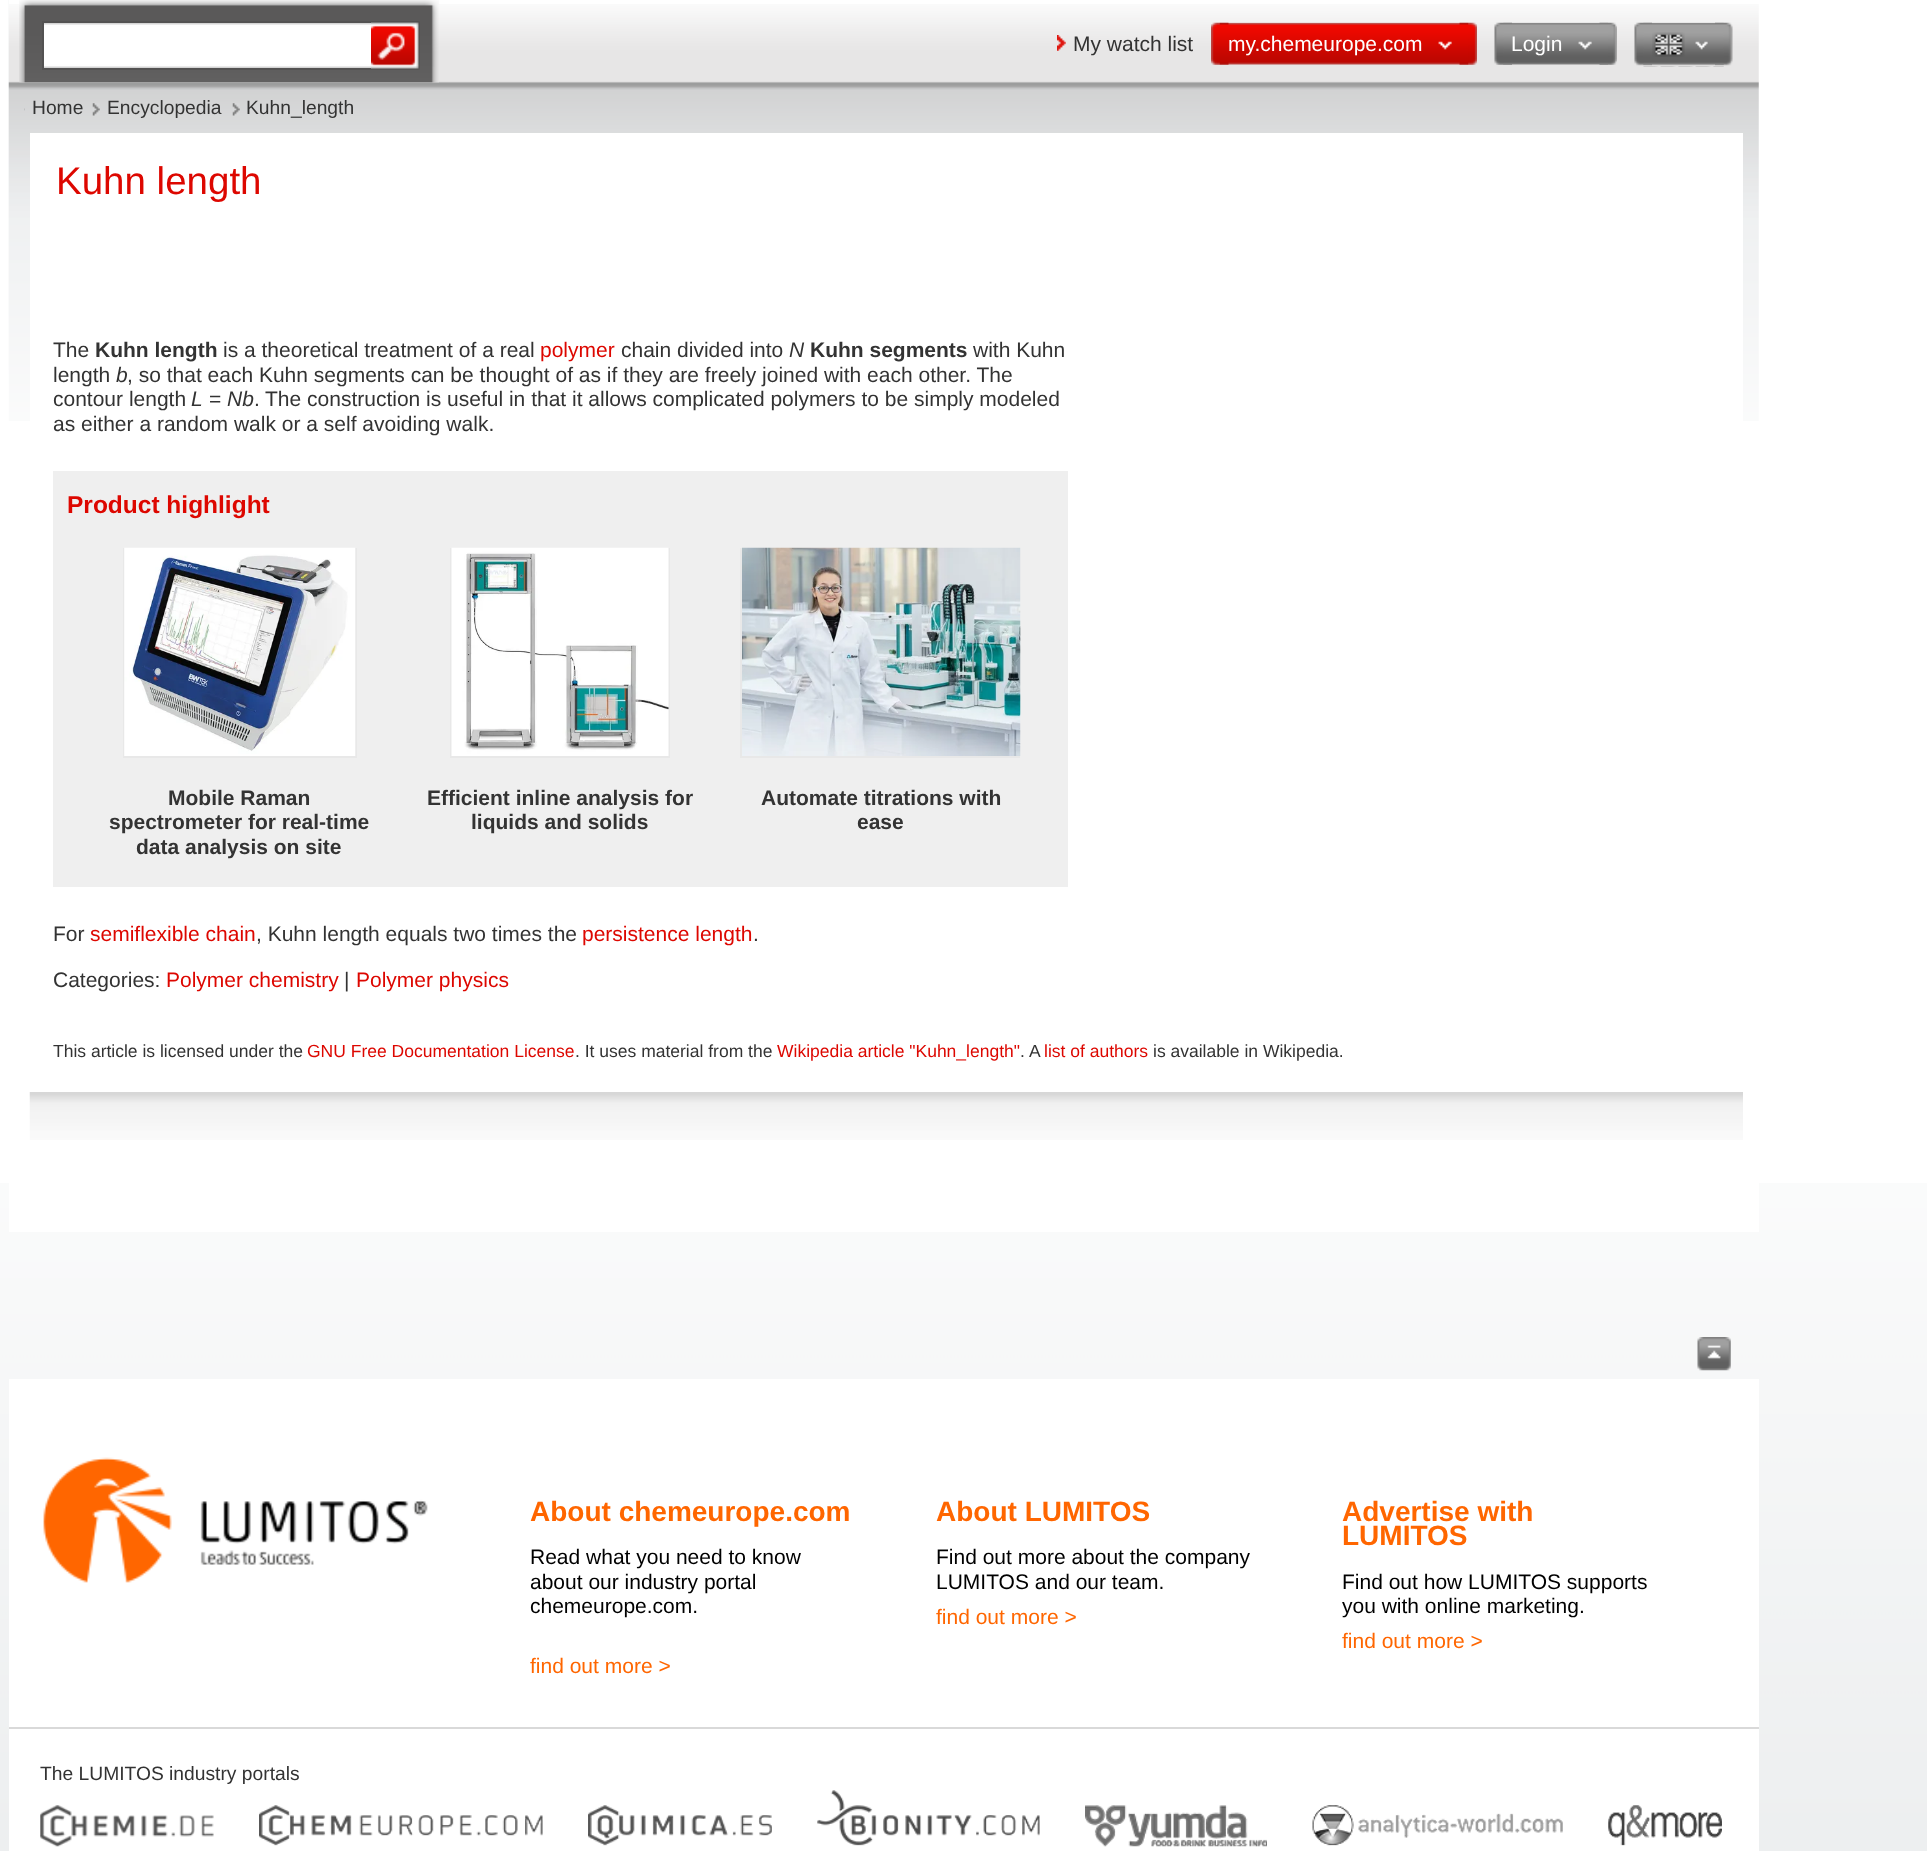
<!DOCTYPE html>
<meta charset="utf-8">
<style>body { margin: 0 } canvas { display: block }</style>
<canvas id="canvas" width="1927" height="1851"></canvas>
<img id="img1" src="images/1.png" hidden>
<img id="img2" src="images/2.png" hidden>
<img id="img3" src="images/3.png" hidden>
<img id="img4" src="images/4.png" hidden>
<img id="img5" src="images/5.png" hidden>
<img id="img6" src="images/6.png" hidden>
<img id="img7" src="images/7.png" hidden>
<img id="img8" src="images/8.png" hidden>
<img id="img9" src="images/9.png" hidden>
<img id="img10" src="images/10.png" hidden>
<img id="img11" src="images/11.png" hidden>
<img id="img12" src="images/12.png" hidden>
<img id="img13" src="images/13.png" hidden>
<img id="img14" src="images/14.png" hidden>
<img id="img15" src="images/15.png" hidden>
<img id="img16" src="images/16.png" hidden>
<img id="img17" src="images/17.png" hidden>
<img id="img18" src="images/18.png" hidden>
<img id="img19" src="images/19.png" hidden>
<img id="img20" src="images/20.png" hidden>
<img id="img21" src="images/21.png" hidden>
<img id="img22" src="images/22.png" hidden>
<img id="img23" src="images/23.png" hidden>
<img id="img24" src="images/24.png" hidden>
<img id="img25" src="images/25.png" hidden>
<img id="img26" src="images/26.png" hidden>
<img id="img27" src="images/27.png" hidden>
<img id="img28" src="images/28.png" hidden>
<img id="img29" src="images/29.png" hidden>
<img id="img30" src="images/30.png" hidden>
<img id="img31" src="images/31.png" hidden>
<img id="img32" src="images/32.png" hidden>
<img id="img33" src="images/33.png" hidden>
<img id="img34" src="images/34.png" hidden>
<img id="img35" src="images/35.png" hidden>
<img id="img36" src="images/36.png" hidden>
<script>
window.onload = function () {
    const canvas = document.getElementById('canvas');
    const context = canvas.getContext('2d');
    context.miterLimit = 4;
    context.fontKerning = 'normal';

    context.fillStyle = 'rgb(255, 255, 255)';
    context.fillRect(0, 0, 1927, 1851);
    context.drawImage(document.getElementById('img1'), 0, 1183, 1927, 668);
    context.drawImage(document.getElementById('img2'), 8, 0, 1, 370);
    context.fillRect(9, 1183, 1750, 49);
    context.drawImage(document.getElementById('img3'), 8, 4, 1751, 417);
    context.drawImage(document.getElementById('img4'), 19, 0, 420, 83);
    context.drawImage(document.getElementById('img5'), 44, 23, 327, 45);
    context.fillStyle = 'rgb(83, 82, 82)';
    context.fillRect(42, 21, 329, 2);
    context.fillRect(42, 68, 329, 2);
    context.fillRect(42, 21, 2, 49);
    context.drawImage(document.getElementById('img6'), 371, 21, 49, 49);
    context.drawImage(document.getElementById('img7'), 1057, 35, 9, 16);
    context.drawImage(document.getElementById('img8'), 1211, 22, 18, 43);
    context.drawImage(document.getElementById('img9'), 1459, 22, 18, 43);
    context.drawImage(document.getElementById('img10'), 1219, 22, 250, 43);
    context.drawImage(document.getElementById('img11'), 1438, 41, 14, 9);
    context.drawImage(document.getElementById('img12'), 1494, 22, 18, 43);
    context.drawImage(document.getElementById('img13'), 1599, 22, 18, 43);
    context.drawImage(document.getElementById('img14'), 1503, 22, 105, 43);
    context.drawImage(document.getElementById('img15'), 1578, 41, 14, 9);
    context.drawImage(document.getElementById('img16'), 1634, 22, 18, 44);
    context.drawImage(document.getElementById('img17'), 1715, 22, 18, 44);
    context.drawImage(document.getElementById('img18'), 1643, 22, 81, 45);
    context.drawImage(document.getElementById('img19'), 1652, 32, 33, 25);
    context.drawImage(document.getElementById('img20'), 1695, 41, 13, 9);
    context.drawImage(document.getElementById('img21'), 24, 108, 1, 3);
    context.drawImage(document.getElementById('img22'), 92, 103, 8, 13);
    context.drawImage(document.getElementById('img23'), 232, 103, 8, 13);
    context.fillStyle = 'rgb(255, 255, 255)';
    context.fillRect(30, 133, 1713, 288);
    context.fillStyle = 'rgb(239, 239, 239)';
    context.fillRect(53, 471, 1015, 416);
    context.save();
    context.beginPath();
    context.rect(100, 548, 280, 210);
    context.clip();
    context.strokeStyle = 'rgb(232, 232, 232)';
    context.lineWidth = 2;
    context.strokeRect(124, 545, 232, 212);
    context.restore();
    context.drawImage(document.getElementById('img24'), 124, 547, 232, 209);
    context.save();
    context.beginPath();
    context.rect(420, 548, 280, 210);
    context.clip();
    context.strokeStyle = 'rgb(232, 232, 232)';
    context.lineWidth = 2;
    context.strokeRect(451, 545, 218, 212);
    context.restore();
    context.drawImage(document.getElementById('img25'), 451, 547, 218, 209);
    context.save();
    context.beginPath();
    context.rect(740, 548, 280, 210);
    context.clip();
    context.strokeStyle = 'rgb(232, 232, 232)';
    context.lineWidth = 2;
    context.strokeRect(741, 545, 317, 212);
    context.restore();
    context.drawImage(document.getElementById('img26'), 742, 547, 279, 209);
    context.drawImage(document.getElementById('img27'), 29, 1092, 1714, 48);
    context.drawImage(document.getElementById('img28'), 1697, 1337, 34, 34);
    context.fillStyle = 'rgb(255, 255, 255)';
    context.fillRect(9, 1379, 1750, 472);
    context.drawImage(document.getElementById('img29'), 43, 1457, 385, 126);
    context.fillStyle = 'rgb(217, 217, 217)';
    context.fillRect(9, 1727, 1750, 2);
    context.drawImage(document.getElementById('img30'), 40, 1805, 174, 42);
    context.drawImage(document.getElementById('img31'), 259, 1805, 284, 41);
    context.drawImage(document.getElementById('img32'), 588, 1805, 184, 41);
    context.drawImage(document.getElementById('img33'), 817, 1790, 223, 56);
    context.drawImage(document.getElementById('img34'), 1085, 1805, 182, 42);
    context.drawImage(document.getElementById('img35'), 1312, 1805, 251, 41);
    context.drawImage(document.getElementById('img36'), 1608, 1805, 114, 41);
    context.font = '21px Liberation Sans';
    context.fillStyle = 'rgb(51, 51, 51)';
    context.fillText('My watch list', 1073, 51);
    context.fillStyle = 'rgb(255, 255, 255)';
    context.fillText('my.chemeurope.com', 1228, 51);
    context.fillText('Login', 1511, 51);
    context.font = '19.25px Liberation Sans';
    context.fillStyle = 'rgb(51, 51, 51)';
    context.fillText('Home', 32, 114);
    context.fillText('Encyclopedia', 107, 114);
    context.fillText('Kuhn_length', 246, 114);
    context.font = '38.5px Liberation Sans';
    context.fillStyle = 'rgb(221, 7, 0)';
    context.fillText('Kuhn length', 56, 194);
    context.font = '21px Liberation Sans';
    context.fillStyle = 'rgb(51, 51, 51)';
    context.fillText('The', 53, 357);
    context.font = 'bold 21px Liberation Sans';
    context.fillText('Kuhn length', 95, 357);
    context.font = '21px Liberation Sans';
    context.fillText('is a theoretical treatment of a real', 223, 357);
    context.fillStyle = 'rgb(221, 7, 0)';
    context.fillText('polymer', 540, 357);
    context.fillStyle = 'rgb(51, 51, 51)';
    context.fillText('chain divided into', 621, 357);
    context.font = 'italic 21px Liberation Sans';
    context.fillText('N', 789, 357);
    context.font = 'bold 21px Liberation Sans';
    context.fillText('Kuhn segments', 810, 357);
    context.font = '21px Liberation Sans';
    context.fillText('with Kuhn', 973, 357);
    context.fillText('length', 53, 382);
    context.font = 'italic 21px Liberation Sans';
    context.fillText('b', 116, 382);
    context.font = '21px Liberation Sans';
    context.fillText(', so that each Kuhn segments can be thought of as if they are freely joined with each other. The', 127, 382);
    context.fillText('contour length', 53, 406);
    context.font = 'italic 21px Liberation Sans';
    context.fillText('L', 191, 406);
    context.font = '21px Liberation Sans';
    context.fillText('=', 209, 406);
    context.font = 'italic 21px Liberation Sans';
    context.fillText('Nb', 227, 406);
    context.font = '21px Liberation Sans';
    context.fillText('The construction is useful in that it allows complicated polymers to be simply modeled', 265, 406);
    context.fillText('.', 254, 406);
    context.fillText('as either a random walk or a self avoiding walk.', 53, 431);
    context.font = 'bold 24.5px Liberation Sans';
    context.fillStyle = 'rgb(221, 7, 0)';
    context.fillText('Product highlight', 67, 513);
    context.font = 'bold 21px Liberation Sans';
    context.fillStyle = 'rgb(51, 51, 51)';
    context.fillText('Mobile Raman', 168, 805);
    context.fillText('spectrometer for real-time', 109, 829);
    context.fillText('data analysis on site', 136, 854);
    context.fillText('Efficient inline analysis for', 427, 805);
    context.fillText('liquids and solids', 471, 829);
    context.fillText('Automate titrations with', 761, 805);
    context.fillText('ease', 857, 829);
    context.font = '21px Liberation Sans';
    context.fillText('For', 53, 941);
    context.fillStyle = 'rgb(221, 7, 0)';
    context.fillText('semiflexible chain', 90, 941);
    context.fillStyle = 'rgb(51, 51, 51)';
    context.fillText(', Kuhn length equals two times the', 256, 941);
    context.fillStyle = 'rgb(221, 7, 0)';
    context.fillText('persistence length', 582, 941);
    context.fillStyle = 'rgb(51, 51, 51)';
    context.fillText('.', 753, 941);
    context.fillText('Categories:', 53, 987);
    context.fillStyle = 'rgb(221, 7, 0)';
    context.fillText('Polymer chemistry', 166, 987);
    context.fillStyle = 'rgb(51, 51, 51)';
    context.fillText('|', 344, 987);
    context.fillStyle = 'rgb(221, 7, 0)';
    context.fillText('Polymer physics', 356, 987);
    context.font = '17.5px Liberation Sans';
    context.fillStyle = 'rgb(51, 51, 51)';
    context.fillText('This article is licensed under the', 53, 1057);
    context.fillStyle = 'rgb(221, 7, 0)';
    context.fillText('GNU Free Documentation License', 307, 1057);
    context.fillStyle = 'rgb(51, 51, 51)';
    context.fillText('. It uses material from the', 575, 1057);
    context.fillStyle = 'rgb(221, 7, 0)';
    context.fillText('Wikipedia article "Kuhn_length"', 777, 1057);
    context.fillStyle = 'rgb(51, 51, 51)';
    context.fillText('.', 1020, 1057);
    context.fillText('A', 1029, 1057);
    context.fillStyle = 'rgb(221, 7, 0)';
    context.fillText('list of authors', 1044, 1057);
    context.fillStyle = 'rgb(51, 51, 51)';
    context.fillText('is available in Wikipedia.', 1153, 1057);
    context.font = 'bold 28px Liberation Sans';
    context.fillStyle = 'rgb(255, 102, 0)';
    context.fillText('About chemeurope.com', 530, 1521);
    context.font = '21px Liberation Sans';
    context.fillStyle = 'rgb(0, 0, 0)';
    context.fillText('Read what you need to know', 530, 1564);
    context.fillText('about our industry portal', 530, 1589);
    context.fillText('chemeurope.com.', 530, 1613);
    context.fillStyle = 'rgb(255, 102, 0)';
    context.fillText('find out more >', 530, 1673);
    context.font = 'bold 28px Liberation Sans';
    context.fillText('About LUMITOS', 936, 1521);
    context.font = '21px Liberation Sans';
    context.fillStyle = 'rgb(0, 0, 0)';
    context.fillText('Find out more about the company', 936, 1564);
    context.fillText('LUMITOS and our team.', 936, 1589);
    context.fillStyle = 'rgb(255, 102, 0)';
    context.fillText('find out more >', 936, 1624);
    context.font = 'bold 28px Liberation Sans';
    context.fillText('Advertise with', 1342, 1521);
    context.fillText('LUMITOS', 1342, 1545);
    context.font = '21px Liberation Sans';
    context.fillStyle = 'rgb(0, 0, 0)';
    context.fillText('Find out how LUMITOS supports', 1342, 1589);
    context.fillText('you with online marketing.', 1342, 1613);
    context.fillStyle = 'rgb(255, 102, 0)';
    context.fillText('find out more >', 1342, 1648);
    context.font = '19.25px Liberation Sans';
    context.fillStyle = 'rgb(51, 51, 51)';
    context.fillText('The LUMITOS industry portals', 40, 1780);
};
</script>
